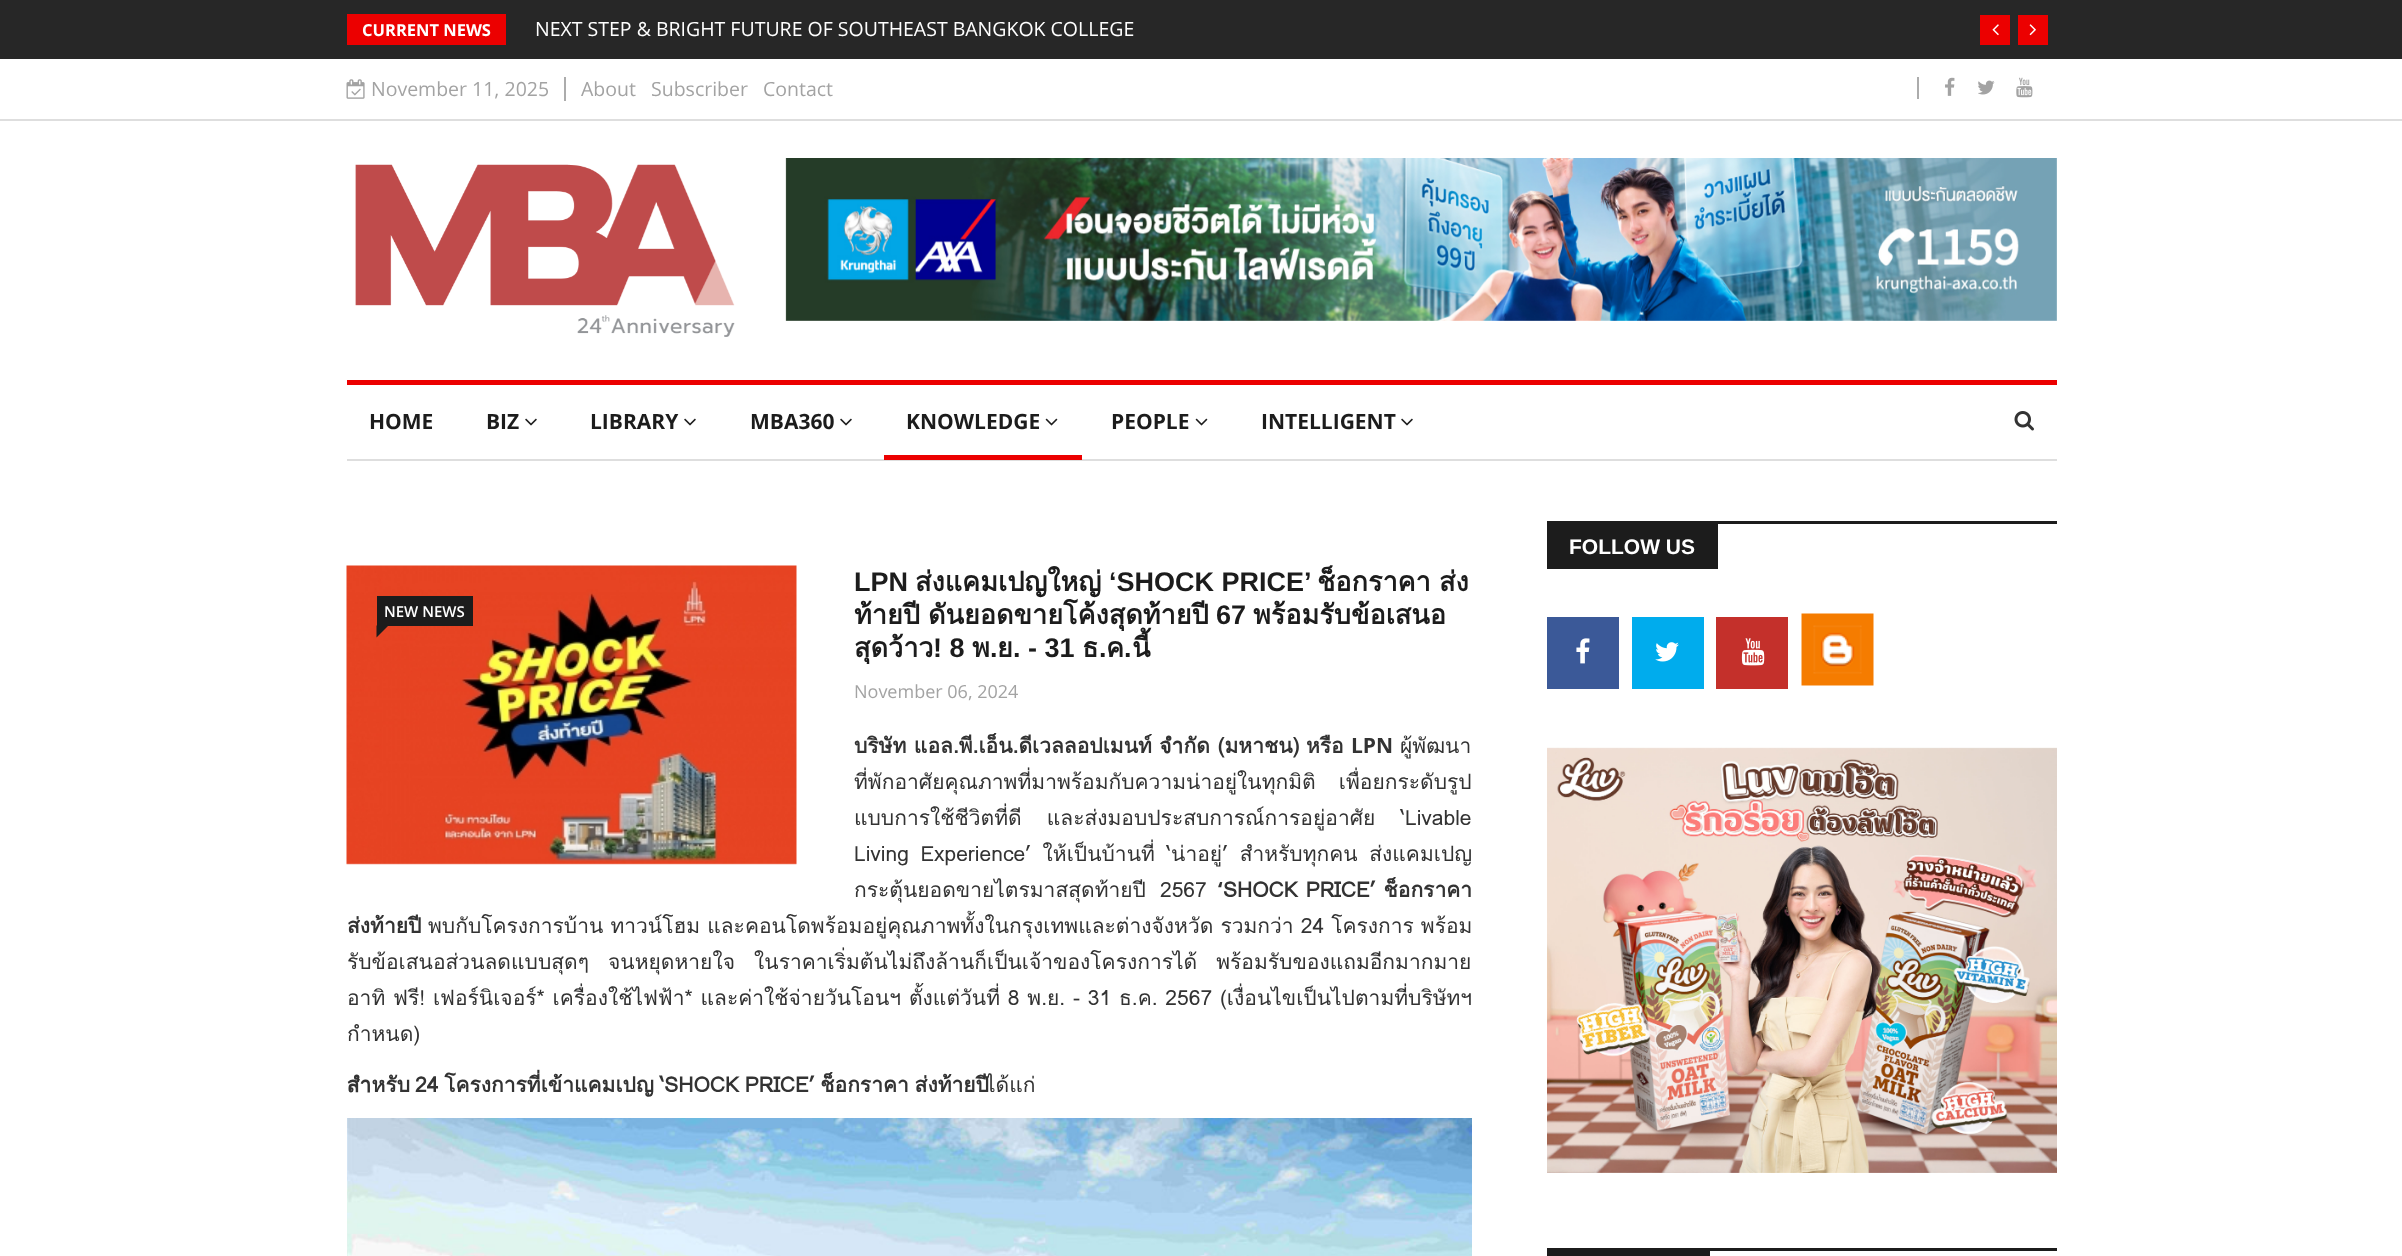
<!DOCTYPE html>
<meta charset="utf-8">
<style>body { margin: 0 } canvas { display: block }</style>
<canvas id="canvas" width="2402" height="1256"></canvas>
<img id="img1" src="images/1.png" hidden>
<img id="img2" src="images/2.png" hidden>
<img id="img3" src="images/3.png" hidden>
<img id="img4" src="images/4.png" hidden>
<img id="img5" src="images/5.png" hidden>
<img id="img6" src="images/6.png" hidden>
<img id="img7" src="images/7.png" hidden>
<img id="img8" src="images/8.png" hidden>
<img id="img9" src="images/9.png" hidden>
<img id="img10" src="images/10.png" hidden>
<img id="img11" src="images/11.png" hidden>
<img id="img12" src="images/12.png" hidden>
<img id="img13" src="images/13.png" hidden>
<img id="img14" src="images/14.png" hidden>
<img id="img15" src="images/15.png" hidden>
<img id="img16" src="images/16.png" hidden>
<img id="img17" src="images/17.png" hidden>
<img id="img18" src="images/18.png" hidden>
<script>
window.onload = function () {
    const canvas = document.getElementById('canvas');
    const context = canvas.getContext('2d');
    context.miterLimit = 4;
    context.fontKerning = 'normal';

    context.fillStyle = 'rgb(255, 255, 255)';
    context.fillRect(0, 0, 2402, 1256);
    context.fillStyle = 'rgb(39, 39, 39)';
    context.fillRect(0, 0, 2402, 59);
    context.fillStyle = 'rgb(236, 0, 0)';
    context.fillRect(347, 14, 159, 31);
    context.fillRect(1980, 15, 30, 30);
    context.drawImage(document.getElementById('img1'), 1992, 24, 7, 12);
    context.fillRect(2018, 15, 30, 30);
    context.drawImage(document.getElementById('img2'), 2029, 24, 7, 12);
    context.fillStyle = 'rgb(222, 222, 222)';
    context.fillRect(0, 119, 2402, 2);
    context.fillStyle = 'rgb(172, 172, 172)';
    context.fillRect(564, 77, 2, 24);
    context.drawImage(document.getElementById('img3'), 346, 79, 19, 20);
    context.fillRect(1917, 77, 2, 22);
    context.drawImage(document.getElementById('img4'), 1945, 77, 10, 19);
    context.drawImage(document.getElementById('img5'), 1978, 80, 17, 15);
    context.drawImage(document.getElementById('img6'), 2016, 77, 17, 21);
    context.drawImage(document.getElementById('img7'), 355, 164, 380, 173);
    context.drawImage(document.getElementById('img8'), 785, 158, 1272, 163);
    context.fillStyle = 'rgb(236, 0, 0)';
    context.fillRect(347, 380, 1710, 5);
    context.fillStyle = 'rgb(222, 222, 222)';
    context.fillRect(347, 459, 1710, 2);
    context.drawImage(document.getElementById('img9'), 525, 418, 12, 8);
    context.drawImage(document.getElementById('img9'), 684, 418, 12, 8);
    context.drawImage(document.getElementById('img9'), 840, 418, 12, 8);
    context.drawImage(document.getElementById('img10'), 1045, 418, 13, 8);
    context.fillStyle = 'rgb(236, 0, 0)';
    context.fillRect(884, 455, 198, 5);
    context.drawImage(document.getElementById('img10'), 1195, 418, 13, 8);
    context.drawImage(document.getElementById('img9'), 1401, 418, 12, 8);
    context.drawImage(document.getElementById('img11'), 2014, 411, 20, 20);
    context.fillStyle = 'rgb(28, 28, 28)';
    context.fillRect(1547, 521, 510, 3);
    context.fillRect(1547, 524, 171, 45);
    context.fillStyle = 'rgb(59, 89, 152)';
    context.fillRect(1547, 617, 72, 72);
    context.drawImage(document.getElementById('img12'), 1576, 638, 14, 26);
    context.fillStyle = 'rgb(0, 172, 237)';
    context.fillRect(1632, 617, 72, 72);
    context.drawImage(document.getElementById('img13'), 1655, 642, 24, 20);
    context.fillStyle = 'rgb(196, 48, 43)';
    context.fillRect(1716, 617, 72, 72);
    context.drawImage(document.getElementById('img14'), 1741, 638, 24, 28);
    context.drawImage(document.getElementById('img15'), 1801, 613, 73, 73);
    context.drawImage(document.getElementById('img16'), 1547, 747, 510, 426);
    context.fillStyle = 'rgb(28, 28, 28)';
    context.fillRect(1547, 1248, 510, 3);
    context.fillRect(1547, 1251, 163, 5);
    context.drawImage(document.getElementById('img17'), 346, 565, 451, 300);
    context.fillRect(377, 596, 96, 30);
    context.beginPath();
    context.moveTo(376.5, 625.5);
    context.lineTo(388.5, 625.5);
    context.lineTo(376.5, 637.5);
    context.closePath();
    context.fill();
    context.drawImage(document.getElementById('img18'), 347, 1118, 1125, 138);
    context.font = 'bold 16.5px Open Sans';
    context.fillStyle = 'rgb(255, 255, 255)';
    context.fillText('CURRENT NEWS', 362, 36);
    context.font = '19.5px Open Sans';
    context.fillText('NEXT STEP & BRIGHT FUTURE OF SOUTHEAST BANGKOK COLLEGE', 535, 36);
    context.fillStyle = 'rgb(163, 163, 163)';
    context.fillText('November 11, 2025', 371, 96);
    context.fillText('About', 581, 96);
    context.fillText('Subscriber', 651, 96);
    context.fillText('Contact', 763, 96);
    context.font = 'bold 21px Open Sans';
    context.fillStyle = 'rgb(28, 28, 28)';
    context.fillText('HOME', 369, 429);
    context.fillText('BIZ', 486, 429);
    context.fillText('LIBRARY', 590, 429);
    context.fillText('MBA360', 750, 429);
    context.fillText('KNOWLEDGE', 906, 429);
    context.fillText('PEOPLE', 1111, 429);
    context.fillText('INTELLIGENT', 1261, 429);
    context.font = 'bold 21px Arimo';
    context.fillStyle = 'rgb(255, 255, 255)';
    context.fillText('FOLLOW US', 1569, 554);
    context.font = '600 15px Open Sans';
    context.fillText('NEW NEWS', 384, 617);
    context.font = 'bold 27px Arimo';
    context.fillStyle = 'rgb(28, 28, 28)';
    context.fillText('LPN', 854, 591);
    context.font = 'bold 27px Loma';
    context.fillText('ส่งแคมเปญใหญ่', 915, 591);
    context.font = 'bold 27px Arimo';
    context.fillText('‘SHOCK PRICE’', 1109, 591);
    context.font = 'bold 27px Loma';
    context.fillText('ช็อกราคา', 1317, 591);
    context.fillText('ส่ง', 1439, 591);
    context.wordSpacing = '-1px';
    context.fillText('ท้ายปี ดันยอดขายโค้งสุดท้ายปี', 854, 624);
    context.wordSpacing = '0px';
    context.font = 'bold 27px Arimo';
    context.fillText('67', 1216, 624);
    context.font = 'bold 27px Loma';
    context.fillText('พร้อมรับข้อเสนอ', 1253, 624);
    context.fillText('สุดว้าว', 854, 657);
    context.font = 'bold 27px Arimo';
    context.fillText('! 8', 933, 657);
    context.font = 'bold 27px Loma';
    context.fillText('พ', 972, 657);
    context.font = 'bold 27px Arimo';
    context.fillText('.', 990, 657);
    context.font = 'bold 27px Loma';
    context.fillText('ย', 997, 657);
    context.font = 'bold 27px Arimo';
    context.fillText('. - 31', 1013, 657);
    context.font = 'bold 27px Loma';
    context.fillText('ธ', 1082, 657);
    context.font = 'bold 27px Arimo';
    context.fillText('.', 1099, 657);
    context.font = 'bold 27px Loma';
    context.fillText('ค', 1106, 657);
    context.font = 'bold 27px Arimo';
    context.fillText('.', 1124, 657);
    context.font = 'bold 27px Loma';
    context.fillText('นี้', 1132, 657);
    context.font = '18px Open Sans';
    context.fillStyle = 'rgb(163, 163, 163)';
    context.fillText('November 06, 2024', 854, 698);
    context.wordSpacing = '0.5px';
    context.font = 'bold 21px Loma';
    context.fillStyle = 'rgb(51, 51, 51)';
    context.fillText('บริษัท แอล.พี.เอ็น.ดีเวลลอปเมนท์ จำกัด (มหาชน)', 854, 753);
    context.wordSpacing = '0px';
    context.fillText('หรือ', 1306, 753);
    context.font = 'bold 21px Open Sans';
    context.fillText('LPN', 1351, 753);
    context.font = '21px Loma';
    context.fillText('ผู้พัฒนา', 1400, 753);
    context.wordSpacing = '16px';
    context.fillText('ที่พักอาศัยคุณภาพที่มาพร้อมกับความน่าอยู่ในทุกมิติ เพื่อยกระดับรูป', 854, 789);
    context.wordSpacing = '18px';
    context.fillText('แบบการใช้ชีวิตที่ดี และส่งมอบประสบการณ์การอยู่อาศัย ‘Livable', 854, 825);
    context.wordSpacing = '4.5px';
    context.fillText('Living Experience’ ให้เป็นบ้านที่ ‘น่าอยู่’ สำหรับทุกคน ส่งแคมเปญ', 854, 861);
    context.wordSpacing = '7px';
    context.fillText('กระตุ้นยอดขายไตรมาสสุดท้ายปี 2567', 854, 897);
    context.wordSpacing = '0px';
    context.font = 'bold 21px Open Sans';
    context.fillText('‘', 1218, 897);
    context.wordSpacing = '1px';
    context.font = 'bold 21px Loma';
    context.fillText('SHOCK PRICE’ ช็อกราคา', 1223, 897);
    context.wordSpacing = '0px';
    context.fillText('ส่งท้ายปี', 347, 933);
    context.font = '21px Loma';
    context.fillText('พบกับโครงการบ้าน ทาวน์โฮม และคอนโดพร้อมอยู่คุณภาพทั้งในกรุงเทพและต่างจังหวัด รวมกว่า 24 โครงการ พร้อม', 428, 933);
    context.wordSpacing = '12px';
    context.fillText('รับข้อเสนอส่วนลดแบบสุดๆ จนหยุดหายใจ ในราคาเริ่มต้นไม่ถึงล้านก็เป็นเจ้าของโครงการได้ พร้อมรับของแถมอีกมากมาย', 347, 969);
    context.wordSpacing = '0.75px';
    context.fillText('อาทิ ฟรี! เฟอร์นิเจอร์* เครื่องใช้ไฟฟ้า* และค่าใช้จ่ายวันโอนฯ ตั้งแต่วันที่ 8 พ.ย. - 31 ธ.ค. 2567 (เงื่อนไขเป็นไปตามที่บริษัทฯ', 347, 1005);
    context.wordSpacing = '0px';
    context.fillText('กำหนด)', 347, 1041);
    context.font = 'bold 21px Loma';
    context.fillText('สำหรับ', 347, 1092);
    context.wordSpacing = '-1.25px';
    context.fillText('24 โครงการที่เข้าแคมเปญ ‘SHOCK PRICE’ ช็อกราคา ส่งท้ายปี', 415, 1092);
    context.wordSpacing = '0px';
    context.font = '21px Loma';
    context.fillText('ได้แก่', 985, 1092);
};
</script>
